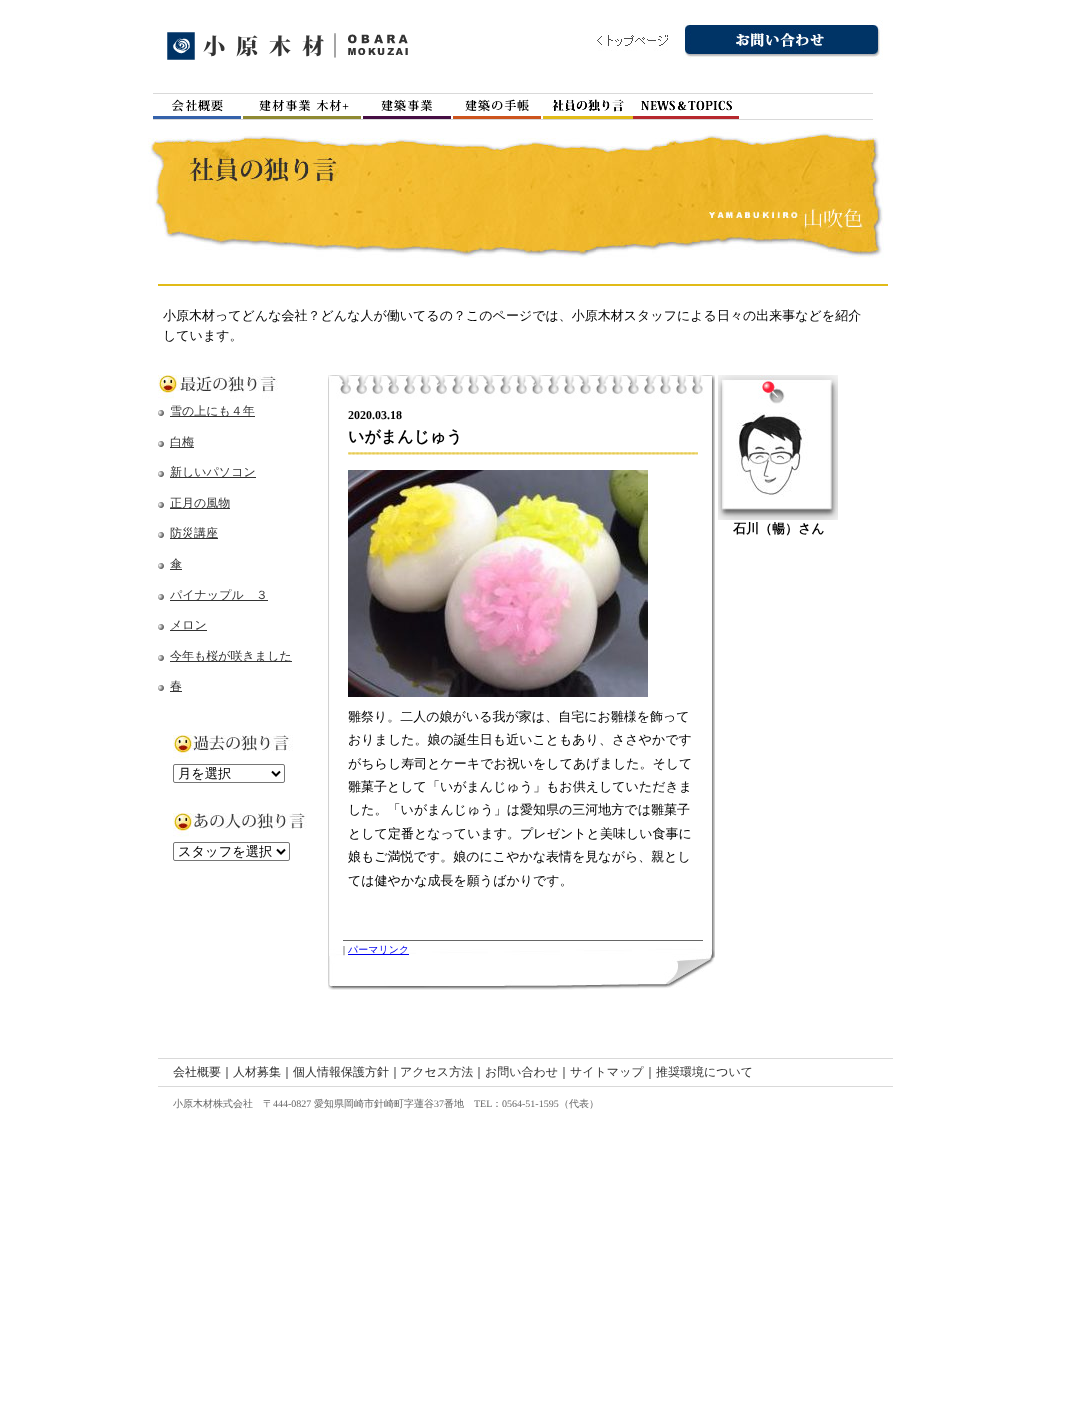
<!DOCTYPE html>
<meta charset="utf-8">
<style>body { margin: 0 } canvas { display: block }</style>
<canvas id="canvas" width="1076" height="1415"></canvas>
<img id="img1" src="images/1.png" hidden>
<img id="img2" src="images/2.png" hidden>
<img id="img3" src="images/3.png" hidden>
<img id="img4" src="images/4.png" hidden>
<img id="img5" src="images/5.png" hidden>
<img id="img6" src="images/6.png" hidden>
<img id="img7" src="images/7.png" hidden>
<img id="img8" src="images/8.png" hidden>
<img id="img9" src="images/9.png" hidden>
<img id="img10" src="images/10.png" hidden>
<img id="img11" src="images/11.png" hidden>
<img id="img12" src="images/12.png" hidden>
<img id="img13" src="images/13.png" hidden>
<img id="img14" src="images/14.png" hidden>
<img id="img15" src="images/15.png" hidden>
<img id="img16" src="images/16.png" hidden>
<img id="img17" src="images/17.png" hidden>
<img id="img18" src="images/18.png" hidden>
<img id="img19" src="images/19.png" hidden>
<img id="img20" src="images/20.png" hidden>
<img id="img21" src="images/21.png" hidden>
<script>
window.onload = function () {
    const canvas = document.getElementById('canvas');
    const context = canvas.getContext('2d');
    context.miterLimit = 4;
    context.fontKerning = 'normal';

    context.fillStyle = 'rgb(255, 255, 255)';
    context.fillRect(0, 0, 1076, 1415);
    context.drawImage(document.getElementById('img1'), 167, 32, 241, 28);
    context.drawImage(document.getElementById('img2'), 597, 31, 71, 20);
    context.drawImage(document.getElementById('img3'), 683, 20, 200, 40);
    context.fillStyle = 'rgb(217, 217, 217)';
    context.fillRect(153, 93, 720, 1);
    context.fillRect(153, 119, 720, 1);
    context.drawImage(document.getElementById('img4'), 153, 99, 88, 20);
    context.drawImage(document.getElementById('img5'), 243, 100, 118, 19);
    context.drawImage(document.getElementById('img6'), 363, 99, 88, 20);
    context.drawImage(document.getElementById('img7'), 453, 99, 88, 20);
    context.drawImage(document.getElementById('img8'), 543, 99, 90, 20);
    context.drawImage(document.getElementById('img9'), 633, 100, 106, 19);
    context.drawImage(document.getElementById('img10'), 148, 130, 736, 128);
    context.fillStyle = 'rgb(225, 187, 24)';
    context.fillRect(158, 284, 730, 2);
    context.drawImage(document.getElementById('img11'), 158, 375, 120, 24);
    context.drawImage(document.getElementById('img12'), 158, 410, 6, 6);
    context.fillStyle = 'rgb(51, 51, 51)';
    context.fillRect(170, 416, 85, 1);
    context.drawImage(document.getElementById('img12'), 158, 441, 6, 6);
    context.fillRect(170, 447, 24, 1);
    context.drawImage(document.getElementById('img12'), 158, 471, 6, 6);
    context.fillRect(170, 477, 86, 1);
    context.drawImage(document.getElementById('img12'), 158, 502, 6, 6);
    context.fillRect(170, 508, 60, 1);
    context.drawImage(document.getElementById('img12'), 158, 532, 6, 6);
    context.fillRect(170, 538, 48, 1);
    context.drawImage(document.getElementById('img12'), 158, 563, 6, 6);
    context.fillRect(170, 569, 12, 1);
    context.drawImage(document.getElementById('img12'), 158, 594, 6, 6);
    context.fillRect(170, 600, 98, 1);
    context.drawImage(document.getElementById('img12'), 158, 624, 6, 6);
    context.fillRect(170, 630, 37, 1);
    context.drawImage(document.getElementById('img12'), 158, 655, 6, 6);
    context.fillRect(170, 661, 122, 1);
    context.drawImage(document.getElementById('img12'), 158, 685, 6, 6);
    context.fillRect(170, 691, 12, 1);
    context.drawImage(document.getElementById('img13'), 173, 735, 120, 24);
    context.beginPath();
    context.roundRect(173.5, 764.5, 111, 18, 1.5);
    context.strokeStyle = 'rgb(118, 118, 118)';
    context.stroke();
    context.beginPath();
    context.moveTo(272, 771.5);
    context.lineTo(276, 775.5);
    context.lineTo(280, 771.5);
    context.strokeStyle = 'rgb(0, 0, 0)';
    context.lineWidth = 2;
    context.stroke();
    context.drawImage(document.getElementById('img14'), 173, 813, 134, 24);
    context.beginPath();
    context.roundRect(173.5, 842.5, 116, 18, 1.5);
    context.strokeStyle = 'rgb(118, 118, 118)';
    context.lineWidth = 1;
    context.stroke();
    context.beginPath();
    context.moveTo(277, 849.5);
    context.lineTo(281, 853.5);
    context.lineTo(285, 849.5);
    context.strokeStyle = 'rgb(0, 0, 0)';
    context.lineWidth = 2;
    context.stroke();
    context.drawImage(document.getElementById('img15'), 328, 375, 387, 80);
    context.drawImage(document.getElementById('img16'), 348, 452, 350, 3);
    context.drawImage(document.getElementById('img17'), 328, 455, 387, 485);
    context.drawImage(document.getElementById('img18'), 348, 470, 300, 227);
    context.drawImage(document.getElementById('img19'), 328, 940, 387, 50);
    context.fillStyle = 'rgb(102, 102, 102)';
    context.fillRect(343, 940, 360, 1);
    context.fillStyle = 'rgb(0, 0, 238)';
    context.fillRect(348, 954, 61, 1);
    context.drawImage(document.getElementById('img20'), 718, 375, 120, 145);
    context.drawImage(document.getElementById('img21'), 736, 412, 72, 85);
    context.fillStyle = 'rgb(217, 217, 217)';
    context.fillRect(158, 1058, 735, 1);
    context.fillRect(158, 1086, 735, 1);
    context.font = '500 13px WenQuanYi Zen Hei';
    context.fillStyle = 'rgb(0, 0, 0)';
    context.fillText('小原木材ってどんな会社？どんな人が働いてるの？このページでは、小原木材スタッフによる日々の出来事などを紹介', 163, 320);
    context.fillText('しています。', 163, 340);
    context.font = '500 12px WenQuanYi Zen Hei';
    context.fillStyle = 'rgb(51, 51, 51)';
    context.fillText('雪の上にも４年', 170, 415);
    context.fillText('白梅', 170, 446);
    context.fillText('新しいパソコン', 170, 476);
    context.fillText('正月の風物', 170, 507);
    context.fillText('防災講座', 170, 537);
    context.fillText('傘', 170, 568);
    context.fillText('パイナップル　３', 170, 599);
    context.fillText('メロン', 170, 629);
    context.fillText('今年も桜が咲きました', 170, 660);
    context.fillText('春', 170, 690);
    context.font = '500 13.25px WenQuanYi Zen Hei';
    context.fillStyle = 'rgb(0, 0, 0)';
    context.fillText('月を選択', 178, 778);
    context.fillText('スタッフを選択', 178, 856);
    context.font = 'bold 12px Liberation Serif';
    context.fillText('2020.03.18', 348, 419);
    context.font = 'bold 16px WenQuanYi Zen Hei';
    context.fillText('いがまんじゅう', 348, 442);
    context.font = '500 13px WenQuanYi Zen Hei';
    context.fillText('雛祭り。二人の娘がいる我が家は、自宅にお雛様を飾って', 348, 721);
    context.fillText('おりました。娘の誕生日も近いこともあり、ささやかです', 348, 744);
    context.fillText('がちらし寿司とケーキでお祝いをしてあげました。そして', 348, 768);
    context.fillText('雛菓子として「いがまんじゅう」もお供えしていただきま', 348, 791);
    context.fillText('した。「いがまんじゅう」は愛知県の三河地方では雛菓子', 348, 814);
    context.fillText('として定番となっています。プレゼントと美味しい食事に', 348, 838);
    context.fillText('娘もご満悦です。娘のにこやかな表情を見ながら、親とし', 348, 861);
    context.fillText('ては健やかな成長を願うばかりです。', 348, 885);
    context.font = '10px Liberation Serif';
    context.fillText('|', 343, 953);
    context.font = '500 10px WenQuanYi Zen Hei';
    context.fillStyle = 'rgb(0, 0, 238)';
    context.fillText('パーマリンク', 348, 953);
    context.font = 'bold 13px WenQuanYi Zen Hei';
    context.fillStyle = 'rgb(0, 0, 0)';
    context.fillText('石川（暢）さん', 733, 533);
    context.font = '500 12px WenQuanYi Zen Hei';
    context.fillStyle = 'rgb(51, 51, 51)';
    context.fillText('会社概要', 173, 1076);
    context.fillStyle = 'rgb(0, 0, 0)';
    context.fillText('｜', 221, 1076);
    context.fillStyle = 'rgb(51, 51, 51)';
    context.fillText('人材募集', 233, 1076);
    context.fillStyle = 'rgb(0, 0, 0)';
    context.fillText('｜', 281, 1076);
    context.fillStyle = 'rgb(51, 51, 51)';
    context.fillText('個人情報保護方針', 293, 1076);
    context.fillStyle = 'rgb(0, 0, 0)';
    context.fillText('｜', 389, 1076);
    context.fillStyle = 'rgb(51, 51, 51)';
    context.fillText('アクセス方法', 400, 1076);
    context.fillStyle = 'rgb(0, 0, 0)';
    context.fillText('｜', 473, 1076);
    context.fillStyle = 'rgb(51, 51, 51)';
    context.fillText('お問い合わせ', 485, 1076);
    context.fillStyle = 'rgb(0, 0, 0)';
    context.fillText('｜', 558, 1076);
    context.fillStyle = 'rgb(51, 51, 51)';
    context.fillText('サイトマップ', 570, 1076);
    context.fillStyle = 'rgb(0, 0, 0)';
    context.fillText('｜', 644, 1076);
    context.fillStyle = 'rgb(51, 51, 51)';
    context.fillText('推奨環境について', 656, 1076);
    context.font = '500 10px WenQuanYi Zen Hei';
    context.fillStyle = 'rgb(102, 102, 102)';
    context.fillText('小原木材株式会社', 173, 1107);
    context.fillText('〒', 263, 1107);
    context.font = '10px Liberation Serif';
    context.fillText('444-0827', 273, 1107);
    context.font = '500 10px WenQuanYi Zen Hei';
    context.fillText('愛知県岡崎市針崎町字蓮谷', 314, 1107);
    context.font = '10px Liberation Serif';
    context.fillText('37', 434, 1107);
    context.font = '500 10px WenQuanYi Zen Hei';
    context.fillText('番地', 444, 1107);
    context.font = '10px Liberation Serif';
    context.fillText('TEL', 474, 1107);
    context.font = '500 10px WenQuanYi Zen Hei';
    context.fillText('：', 492, 1107);
    context.font = '10px Liberation Serif';
    context.fillText('0564-51-1595', 502, 1107);
    context.font = '500 10px WenQuanYi Zen Hei';
    context.fillText('（代表）', 559, 1107);
};
</script>
